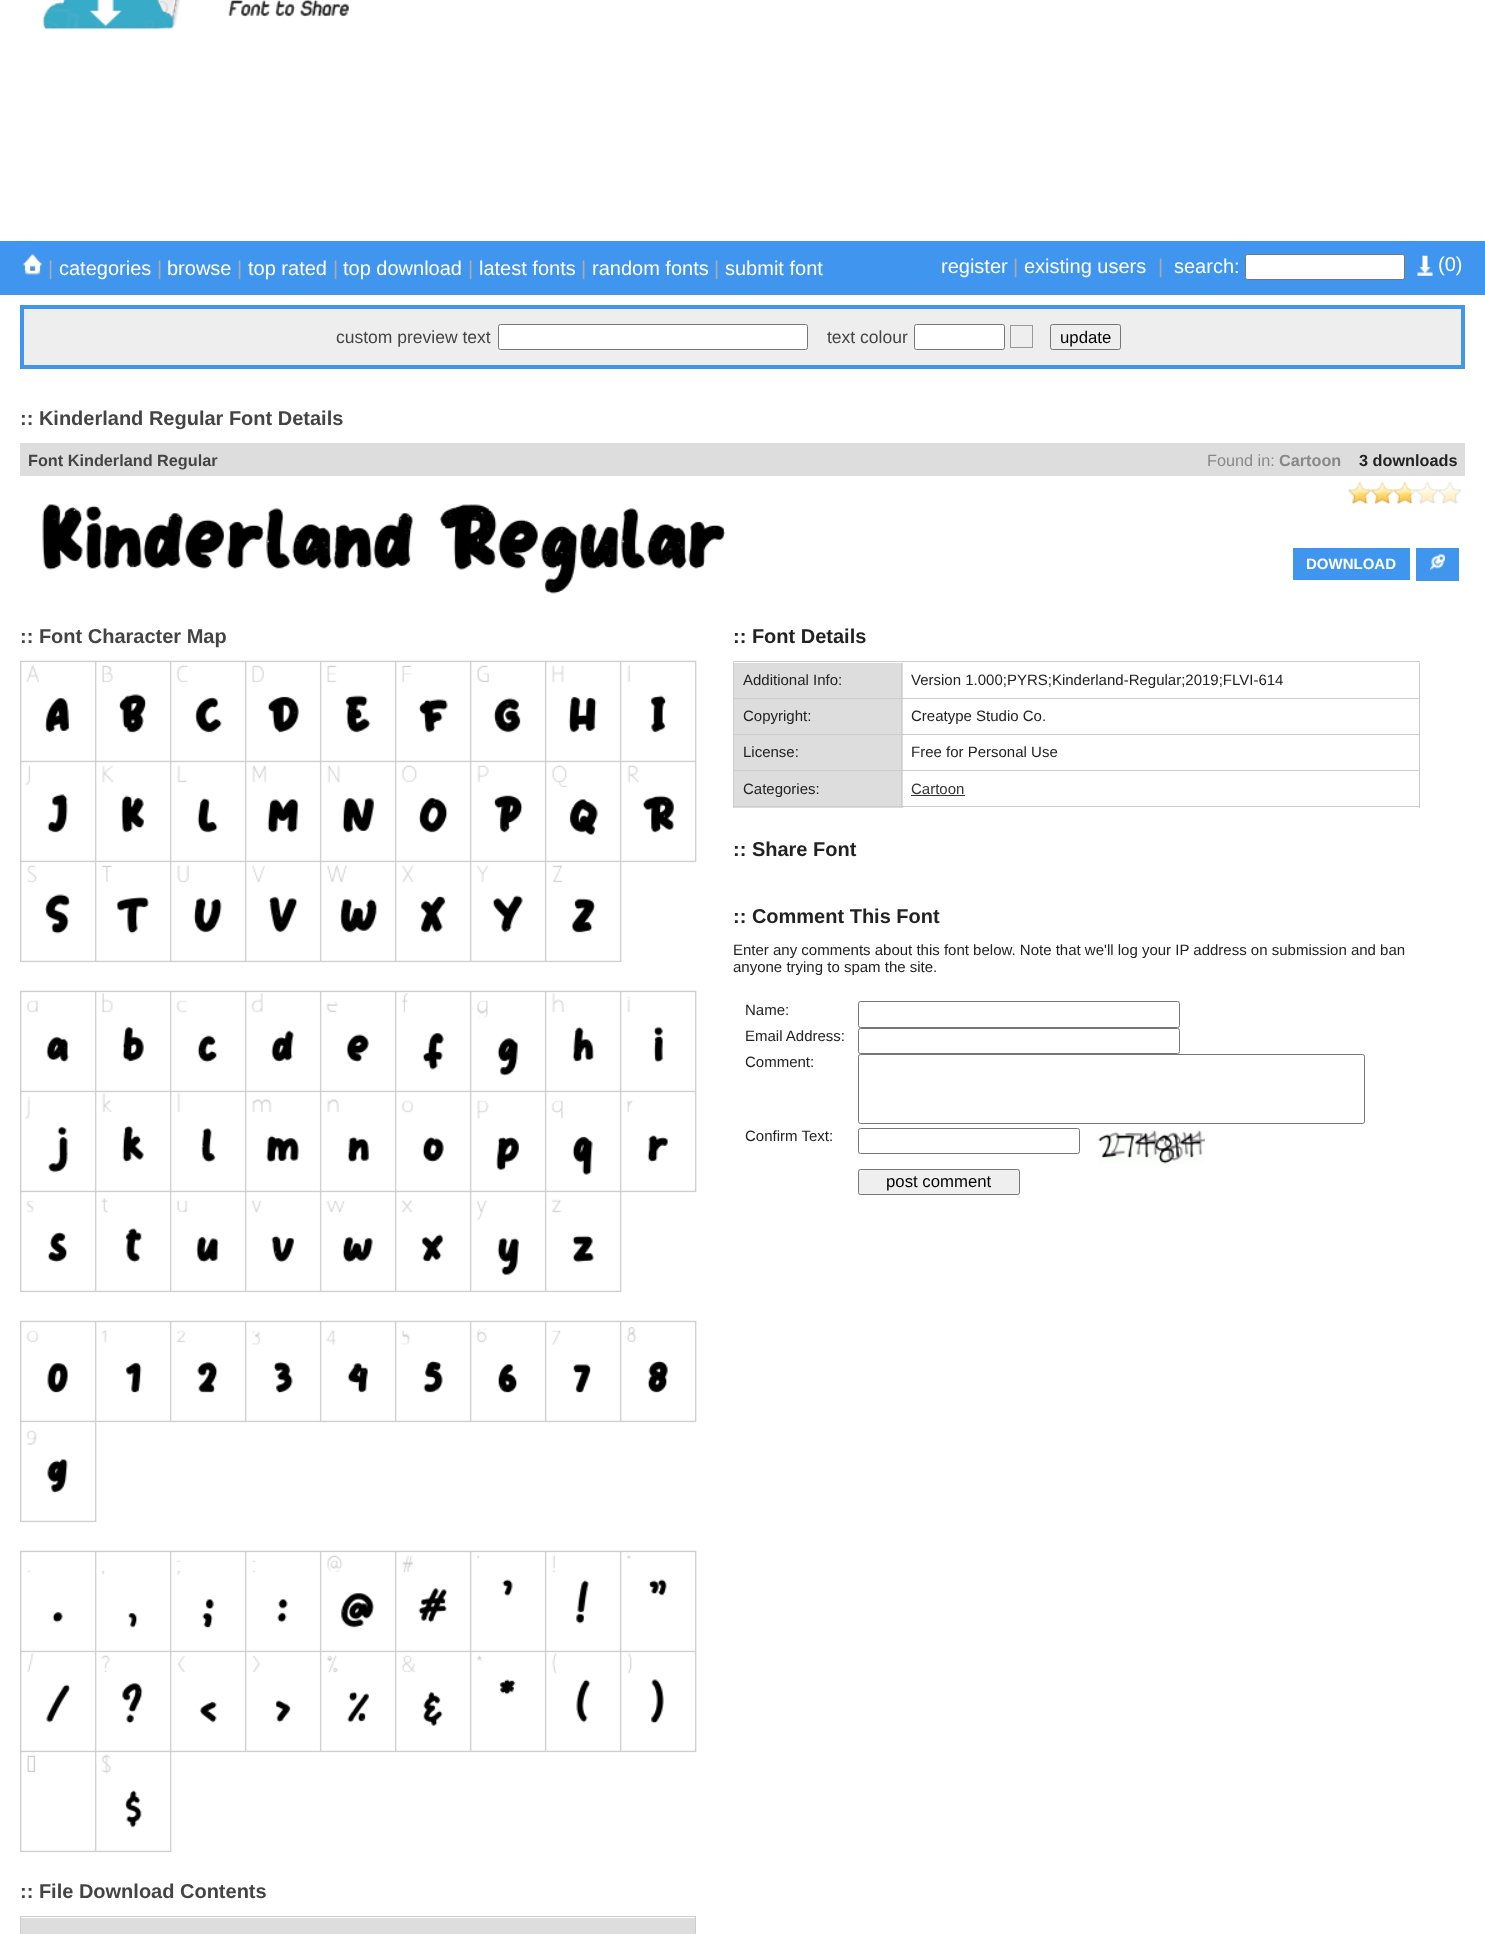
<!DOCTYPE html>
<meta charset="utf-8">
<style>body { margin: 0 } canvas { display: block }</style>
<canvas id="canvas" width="1485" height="1934"></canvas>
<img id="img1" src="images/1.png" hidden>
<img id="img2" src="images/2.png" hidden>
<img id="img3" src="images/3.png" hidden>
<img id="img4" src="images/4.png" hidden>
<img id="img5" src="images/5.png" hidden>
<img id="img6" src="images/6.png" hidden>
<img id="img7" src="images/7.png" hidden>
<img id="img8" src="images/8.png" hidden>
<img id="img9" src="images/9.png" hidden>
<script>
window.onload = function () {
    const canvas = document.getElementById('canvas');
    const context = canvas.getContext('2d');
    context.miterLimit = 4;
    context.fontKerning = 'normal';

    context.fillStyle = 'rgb(255, 255, 255)';
    context.fillRect(0, 0, 1485, 1934);
    context.drawImage(document.getElementById('img1'), 42, 0, 308, 30);
    context.fillStyle = 'rgb(64, 150, 238)';
    context.fillRect(0, 241, 1485, 54);
    context.drawImage(document.getElementById('img2'), 22, 254, 21, 21);
    context.fillStyle = 'rgb(255, 255, 255)';
    context.beginPath();
    context.roundRect(1245.5, 254.5, 159, 25, 2);
    context.fill();
    context.strokeStyle = 'rgb(118, 118, 118)';
    context.stroke();
    context.drawImage(document.getElementById('img3'), 1417, 255, 16, 21);
    context.fillStyle = 'rgb(238, 238, 238)';
    context.beginPath();
    context.rect(22, 307, 1441, 60);
    context.fill();
    context.strokeStyle = 'rgb(64, 150, 238)';
    context.lineWidth = 4;
    context.stroke();
    context.fillStyle = 'rgb(255, 255, 255)';
    context.beginPath();
    context.roundRect(498.5, 324.5, 309, 25, 2);
    context.fill();
    context.strokeStyle = 'rgb(118, 118, 118)';
    context.lineWidth = 1;
    context.stroke();
    context.beginPath();
    context.roundRect(914.5, 324.5, 90, 25, 2);
    context.fill();
    context.stroke();
    context.strokeStyle = 'rgb(153, 153, 153)';
    context.strokeRect(1010.5, 325.5, 22, 22);
    context.beginPath();
    context.roundRect(1050.5, 324.5, 70, 25, 2);
    context.strokeStyle = 'rgb(118, 118, 118)';
    context.stroke();
    context.fillStyle = 'rgb(221, 221, 221)';
    context.fillRect(20, 443, 1445, 33);
    context.drawImage(document.getElementById('img4'), 42, 504, 684, 90);
    context.drawImage(document.getElementById('img5'), 1348, 482, 114, 22);
    context.drawImage(document.getElementById('img6'), 1348, 482, 64, 22);
    context.fillStyle = 'rgb(64, 150, 238)';
    context.fillRect(1293, 548, 117, 32);
    context.fillRect(1416, 548, 43, 33);
    context.drawImage(document.getElementById('img7'), 1430, 554, 15, 16);
    context.drawImage(document.getElementById('img8'), 20, 660, 677, 1193);
    context.fillStyle = 'rgb(204, 204, 204)';
    context.fillRect(20, 1916, 676, 1);
    context.fillRect(695, 1916, 1, 18);
    context.fillRect(20, 1916, 1, 18);
    context.fillStyle = 'rgb(221, 221, 221)';
    context.fillRect(21, 1918, 674, 16);
    context.fillStyle = 'rgb(204, 204, 204)';
    context.fillRect(733, 661, 687, 1);
    context.fillRect(733, 661, 1, 147);
    context.fillStyle = 'rgb(221, 221, 221)';
    context.fillRect(734, 663, 169, 35);
    context.fillStyle = 'rgb(204, 204, 204)';
    context.fillRect(901, 663, 1, 36);
    context.fillRect(734, 698, 169, 1);
    context.fillRect(1419, 663, 1, 145);
    context.fillRect(903, 698, 517, 1);
    context.fillStyle = 'rgb(221, 221, 221)';
    context.fillRect(734, 699, 169, 35);
    context.fillStyle = 'rgb(204, 204, 204)';
    context.fillRect(901, 699, 1, 36);
    context.fillRect(734, 734, 686, 1);
    context.fillStyle = 'rgb(221, 221, 221)';
    context.fillRect(734, 735, 169, 35);
    context.fillStyle = 'rgb(204, 204, 204)';
    context.fillRect(901, 735, 1, 36);
    context.fillRect(734, 770, 686, 1);
    context.fillStyle = 'rgb(221, 221, 221)';
    context.fillRect(734, 771, 169, 37);
    context.fillStyle = 'rgb(204, 204, 204)';
    context.fillRect(901, 771, 1, 37);
    context.fillRect(734, 806, 686, 1);
    context.fillStyle = 'rgb(51, 51, 51)';
    context.fillRect(911, 795, 54, 1);
    context.beginPath();
    context.roundRect(858.5, 1001.5, 321, 26, 2);
    context.stroke();
    context.beginPath();
    context.roundRect(858.5, 1028.5, 321, 25, 2);
    context.stroke();
    context.beginPath();
    context.roundRect(858.5, 1054.5, 506, 69, 2);
    context.stroke();
    context.beginPath();
    context.roundRect(858.5, 1128.5, 221, 25, 2);
    context.stroke();
    context.drawImage(document.getElementById('img9'), 1098, 1130, 107, 34);
    context.fillStyle = 'rgb(239, 239, 239)';
    context.beginPath();
    context.roundRect(858.5, 1169.5, 161, 25, 2);
    context.fill();
    context.stroke();
    context.font = '20px Liberation Sans';
    context.fillStyle = 'rgb(170, 170, 170)';
    context.fillText('|', 48, 275);
    context.fillStyle = 'rgb(255, 255, 255)';
    context.fillText('categories', 59, 275);
    context.fillStyle = 'rgb(170, 170, 170)';
    context.fillText('|', 157, 275);
    context.fillStyle = 'rgb(255, 255, 255)';
    context.fillText('browse', 167, 275);
    context.fillStyle = 'rgb(170, 170, 170)';
    context.fillText('|', 237, 275);
    context.fillStyle = 'rgb(255, 255, 255)';
    context.fillText('top rated', 248, 275);
    context.fillStyle = 'rgb(170, 170, 170)';
    context.fillText('|', 333, 275);
    context.fillStyle = 'rgb(255, 255, 255)';
    context.fillText('top download', 343, 275);
    context.fillStyle = 'rgb(170, 170, 170)';
    context.fillText('|', 468, 275);
    context.fillStyle = 'rgb(255, 255, 255)';
    context.fillText('latest fonts', 479, 275);
    context.fillStyle = 'rgb(170, 170, 170)';
    context.fillText('|', 581, 275);
    context.fillStyle = 'rgb(255, 255, 255)';
    context.fillText('random fonts', 592, 275);
    context.fillStyle = 'rgb(170, 170, 170)';
    context.fillText('|', 714, 275);
    context.fillStyle = 'rgb(255, 255, 255)';
    context.fillText('submit font', 725, 275);
    context.fillText('register', 941, 273);
    context.fillStyle = 'rgb(170, 170, 170)';
    context.fillText('|', 1013, 273);
    context.fillStyle = 'rgb(255, 255, 255)';
    context.fillText('existing users', 1024, 273);
    context.fillStyle = 'rgb(170, 170, 170)';
    context.fillText('|', 1158, 273);
    context.fillStyle = 'rgb(255, 255, 255)';
    context.fillText('search:', 1174, 273);
    context.fillText('(0)', 1438, 271);
    context.font = '17.5px Liberation Sans';
    context.fillStyle = 'rgb(68, 68, 68)';
    context.fillText('custom preview text', 336, 343);
    context.fillText('text colour', 827, 343);
    context.font = '16.75px Liberation Sans';
    context.fillStyle = 'rgb(0, 0, 0)';
    context.fillText('update', 1060, 343);
    context.font = 'bold 20px Liberation Sans';
    context.fillStyle = 'rgb(68, 68, 68)';
    context.fillText(':: Kinderland Regular Font Details', 20, 425);
    context.font = 'bold 16.25px Liberation Sans';
    context.fillText('Font Kinderland Regular', 28, 466);
    context.font = '16.25px Liberation Sans';
    context.fillStyle = 'rgb(136, 136, 136)';
    context.fillText('Found in:', 1207, 466);
    context.font = 'bold 16.25px Liberation Sans';
    context.fillText('Cartoon', 1279, 466);
    context.fillStyle = 'rgb(34, 34, 34)';
    context.fillText('3 downloads', 1359, 466);
    context.font = 'bold 15px Liberation Sans';
    context.fillStyle = 'rgb(255, 255, 255)';
    context.fillText('DOWNLOAD', 1306, 569);
    context.font = 'bold 20px Liberation Sans';
    context.fillStyle = 'rgb(68, 68, 68)';
    context.fillText(':: Font Character Map', 20, 643);
    context.fillText(':: File Download Contents', 20, 1898);
    context.fillStyle = 'rgb(34, 34, 34)';
    context.fillText(':: Font Details', 733, 643);
    context.font = '15px Liberation Sans';
    context.fillText('Additional Info:', 743, 685);
    context.fillText('Version 1.000;PYRS;Kinderland-Regular;2019;FLVI-614', 911, 685);
    context.fillText('Copyright:', 743, 721);
    context.fillText('Creatype Studio Co.', 911, 721);
    context.fillText('License:', 743, 757);
    context.fillText('Free for Personal Use', 911, 757);
    context.fillText('Categories:', 743, 794);
    context.fillStyle = 'rgb(51, 51, 51)';
    context.fillText('Cartoon', 911, 794);
    context.font = 'bold 20px Liberation Sans';
    context.fillStyle = 'rgb(34, 34, 34)';
    context.fillText(':: Share Font', 733, 856);
    context.fillText(':: Comment This Font', 733, 923);
    context.font = '15px Liberation Sans';
    context.fillText('Enter any comments about this font below. Note that we\'ll log your IP address on submission and ban', 733, 955);
    context.fillText('anyone trying to spam the site.', 733, 972);
    context.fillText('Name:', 745, 1015);
    context.fillText('Email Address:', 745, 1041);
    context.fillText('Comment:', 745, 1067);
    context.fillText('Confirm Text:', 745, 1141);
    context.font = '16.75px Liberation Sans';
    context.fillStyle = 'rgb(0, 0, 0)';
    context.fillText('post comment', 886, 1187);
};
</script>
